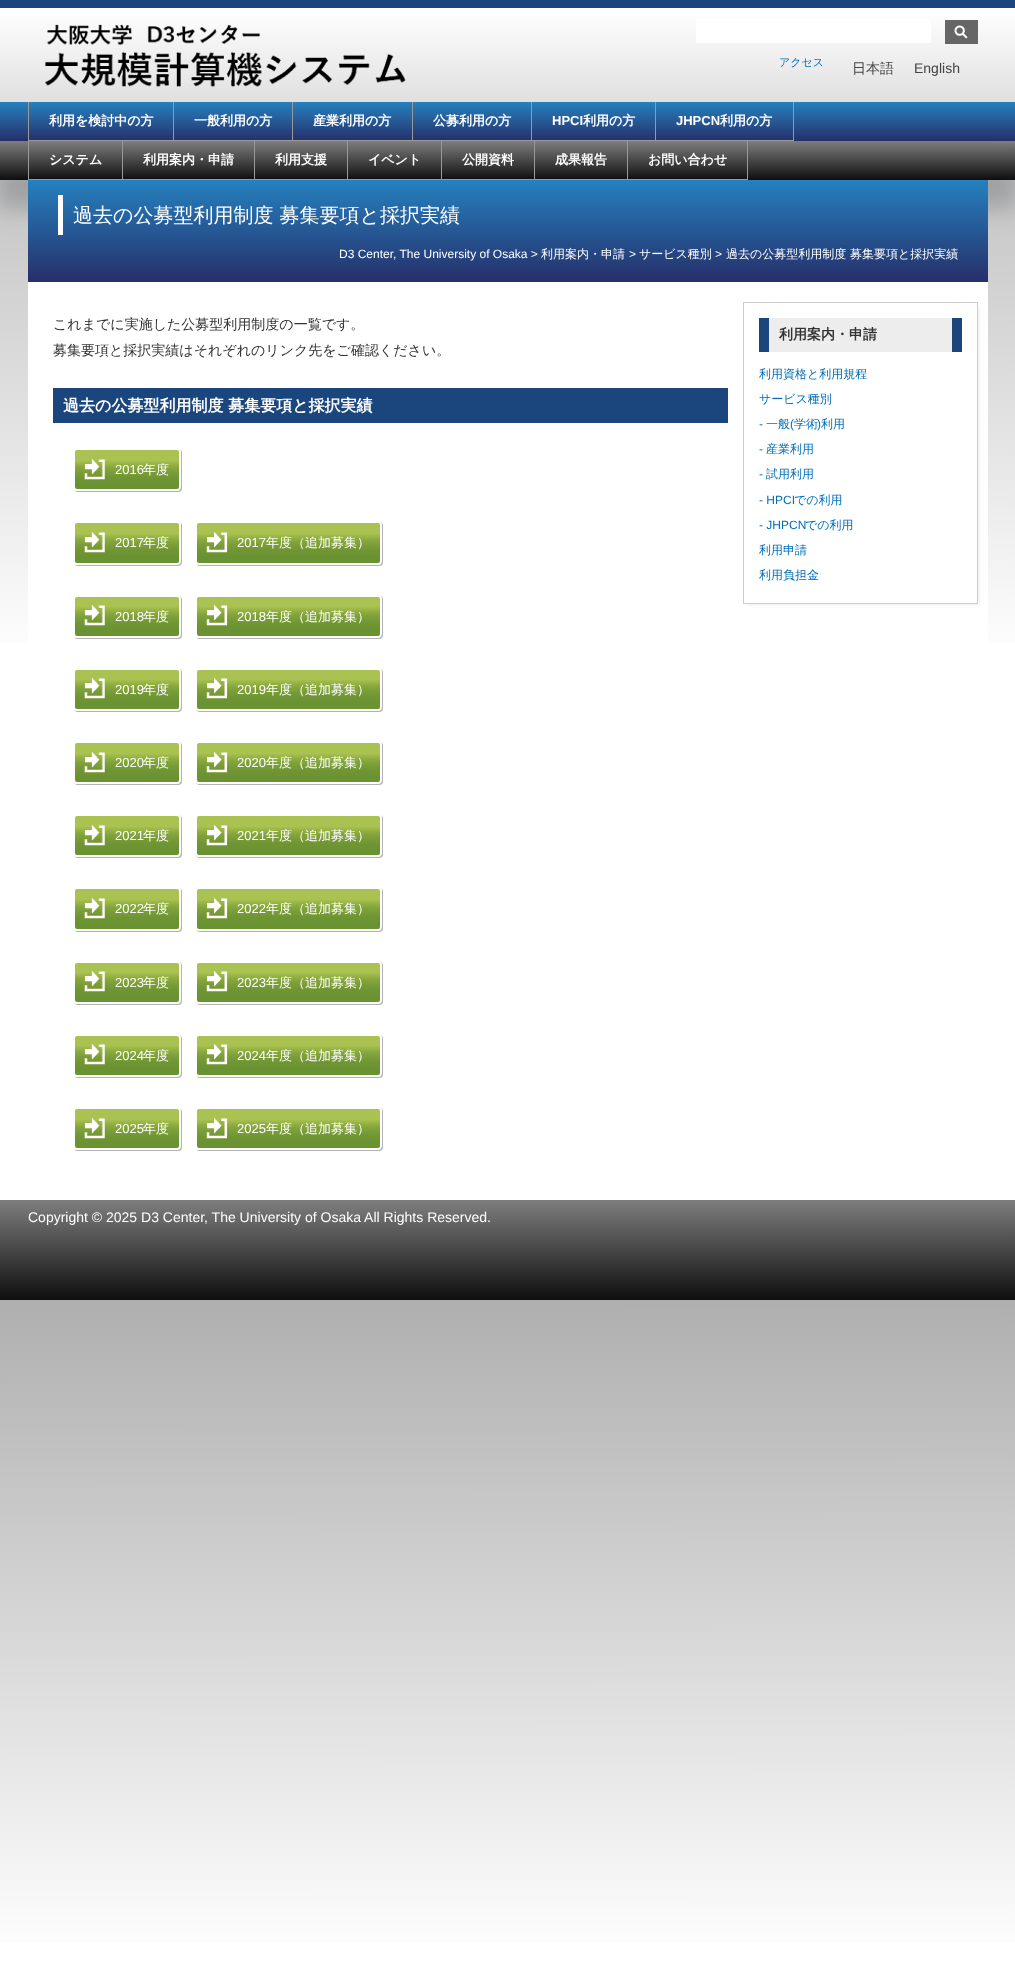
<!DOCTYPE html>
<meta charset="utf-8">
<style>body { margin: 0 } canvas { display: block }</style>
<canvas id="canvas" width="1015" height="1988"></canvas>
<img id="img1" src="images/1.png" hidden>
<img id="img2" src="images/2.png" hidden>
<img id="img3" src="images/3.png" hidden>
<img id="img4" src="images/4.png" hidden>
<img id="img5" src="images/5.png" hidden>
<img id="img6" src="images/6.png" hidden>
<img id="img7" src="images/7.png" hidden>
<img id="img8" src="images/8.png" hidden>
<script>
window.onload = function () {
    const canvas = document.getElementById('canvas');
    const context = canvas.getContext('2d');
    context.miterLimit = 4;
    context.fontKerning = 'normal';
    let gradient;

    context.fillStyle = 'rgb(255, 255, 255)';
    context.fillRect(0, 0, 1015, 1988);
    gradient = context.createLinearGradient(507, 0, 508, 1300);
    gradient.addColorStop(0, 'rgb(175, 175, 175)');
    gradient.addColorStop(0.51, 'rgb(255, 255, 255)');
    gradient.addColorStop(0.99, 'rgb(255, 255, 255)');
    context.fillStyle = gradient;
    context.fillRect(0, 180, 1015, 463);
    gradient = context.createLinearGradient(507, 1300, 508, 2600);
    gradient.addColorStop(0, 'rgb(175, 175, 175)');
    gradient.addColorStop(0.51, 'rgb(255, 255, 255)');
    gradient.addColorStop(0.99, 'rgb(255, 255, 255)');
    context.fillStyle = gradient;
    context.fillRect(0, 1300, 1015, 643);
    gradient = context.createLinearGradient(508, 8, 508, 102);
    gradient.addColorStop(0, 'rgb(255, 255, 255)');
    gradient.addColorStop(1, 'rgb(224, 224, 224)');
    context.fillStyle = gradient;
    context.fillRect(0, 16, 1015, 86);
    context.fillStyle = 'rgb(26, 70, 125)';
    context.fillRect(0, 0, 1015, 8);
    context.drawImage(document.getElementById('img1'), 45, 24, 361, 63);
    context.fillStyle = 'rgb(255, 255, 255)';
    context.fillRect(696, 19, 235, 24);
    context.drawImage(document.getElementById('img2'), 945, 20, 33, 24);
    gradient = context.createLinearGradient(508, 102, 508, 141);
    gradient.addColorStop(0, 'rgb(37, 129, 191)');
    gradient.addColorStop(1, 'rgb(38, 47, 106)');
    context.fillStyle = gradient;
    context.fillRect(0, 102, 1015, 39);
    context.fillStyle = 'rgb(153, 153, 153)';
    context.fillRect(28, 102, 1, 39);
    context.fillStyle = 'rgba(86, 89, 94, 0.33)';
    context.filter = 'blur(11px)';
    context.beginPath();
    context.rect(-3, 164, 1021, 45);
    context.fill();
    context.filter = 'none';
    context.fillStyle = 'rgb(153, 153, 153)';
    context.fillRect(173, 102, 1, 39);
    context.fillRect(29, 140, 145, 1);
    context.fillRect(292, 102, 1, 39);
    context.fillRect(174, 140, 119, 1);
    context.fillRect(412, 102, 1, 39);
    context.fillRect(293, 140, 120, 1);
    context.fillRect(531, 102, 1, 39);
    context.fillRect(413, 140, 119, 1);
    context.fillRect(655, 102, 1, 39);
    context.fillRect(532, 140, 124, 1);
    context.fillRect(793, 102, 1, 39);
    context.fillRect(656, 140, 138, 1);
    gradient = context.createLinearGradient(508, 141, 508, 180);
    gradient.addColorStop(0, 'rgb(125, 126, 125)');
    gradient.addColorStop(1, 'rgb(14, 14, 14)');
    context.fillStyle = gradient;
    context.fillRect(0, 141, 1015, 39);
    context.fillStyle = 'rgb(153, 153, 153)';
    context.fillRect(28, 141, 1, 39);
    context.fillRect(122, 141, 1, 39);
    context.fillRect(29, 179, 94, 1);
    context.fillRect(254, 141, 1, 39);
    context.fillRect(123, 179, 132, 1);
    context.fillRect(347, 141, 1, 39);
    context.fillRect(255, 179, 93, 1);
    context.fillRect(441, 141, 1, 39);
    context.fillRect(348, 179, 94, 1);
    context.fillRect(534, 141, 1, 39);
    context.fillRect(442, 179, 93, 1);
    context.fillRect(627, 141, 1, 39);
    context.fillRect(535, 179, 93, 1);
    context.fillRect(747, 141, 1, 39);
    context.fillRect(628, 179, 120, 1);
    gradient = context.createLinearGradient(508, 180, 508, 282);
    gradient.addColorStop(0, 'rgb(37, 129, 191)');
    gradient.addColorStop(1, 'rgb(38, 47, 106)');
    context.fillStyle = gradient;
    context.fillRect(28, 180, 960, 102);
    context.fillStyle = 'rgb(255, 255, 255)';
    context.fillRect(58, 195, 5, 40);
    context.fillRect(28, 282, 960, 361);
    context.fillStyle = 'rgb(26, 70, 125)';
    context.fillRect(53, 388, 675, 35);
    context.fillStyle = 'rgba(0, 0, 0, 0.3)';
    context.filter = 'blur(0.5px)';
    context.beginPath();
    context.roundRect(74, 449, 108, 43, 4);
    context.fill();
    context.filter = 'none';
    context.drawImage(document.getElementById('img3'), 75, 450, 106, 40);
    context.beginPath();
    context.roundRect(74, 449, 106, 41, 3);
    context.strokeStyle = 'rgb(255, 255, 255)';
    context.lineWidth = 2;
    context.stroke();
    context.filter = 'blur(0.5px)';
    context.beginPath();
    context.roundRect(74, 522, 108, 44, 4);
    context.fill();
    context.filter = 'none';
    context.drawImage(document.getElementById('img4'), 75, 523, 106, 40);
    context.beginPath();
    context.roundRect(74, 522, 106, 42, 3);
    context.stroke();
    context.filter = 'blur(0.5px)';
    context.beginPath();
    context.roundRect(196, 522, 187, 44, 4);
    context.fill();
    context.filter = 'none';
    context.drawImage(document.getElementById('img5'), 197, 523, 185, 40);
    context.beginPath();
    context.roundRect(196, 522, 185, 42, 3);
    context.stroke();
    context.filter = 'blur(0.5px)';
    context.beginPath();
    context.roundRect(74, 596, 108, 43, 4);
    context.fill();
    context.filter = 'none';
    context.drawImage(document.getElementById('img6'), 75, 596, 106, 40);
    context.beginPath();
    context.roundRect(74, 596, 106, 41, 3);
    context.stroke();
    context.filter = 'blur(0.5px)';
    context.beginPath();
    context.roundRect(196, 596, 187, 43, 4);
    context.fill();
    context.filter = 'none';
    context.drawImage(document.getElementById('img7'), 197, 596, 185, 40);
    context.beginPath();
    context.roundRect(196, 596, 185, 41, 3);
    context.stroke();
    context.filter = 'blur(0.5px)';
    context.beginPath();
    context.roundRect(74, 669, 108, 43, 4);
    context.fill();
    context.filter = 'none';
    context.drawImage(document.getElementById('img6'), 75, 669, 106, 40);
    context.beginPath();
    context.roundRect(74, 669, 106, 41, 3);
    context.stroke();
    context.filter = 'blur(0.5px)';
    context.beginPath();
    context.roundRect(196, 669, 187, 43, 4);
    context.fill();
    context.filter = 'none';
    context.drawImage(document.getElementById('img7'), 197, 669, 185, 40);
    context.beginPath();
    context.roundRect(196, 669, 185, 41, 3);
    context.stroke();
    context.filter = 'blur(0.5px)';
    context.beginPath();
    context.roundRect(74, 742, 108, 43, 4);
    context.fill();
    context.filter = 'none';
    context.drawImage(document.getElementById('img3'), 75, 743, 106, 40);
    context.beginPath();
    context.roundRect(74, 742, 106, 41, 3);
    context.stroke();
    context.filter = 'blur(0.5px)';
    context.beginPath();
    context.roundRect(196, 742, 187, 43, 4);
    context.fill();
    context.filter = 'none';
    context.drawImage(document.getElementById('img8'), 197, 743, 185, 40);
    context.beginPath();
    context.roundRect(196, 742, 185, 41, 3);
    context.stroke();
    context.filter = 'blur(0.5px)';
    context.beginPath();
    context.roundRect(74, 815, 108, 43, 4);
    context.fill();
    context.filter = 'none';
    context.drawImage(document.getElementById('img3'), 75, 816, 106, 40);
    context.beginPath();
    context.roundRect(74, 815, 106, 41, 3);
    context.stroke();
    context.filter = 'blur(0.5px)';
    context.beginPath();
    context.roundRect(196, 815, 187, 43, 4);
    context.fill();
    context.filter = 'none';
    context.drawImage(document.getElementById('img8'), 197, 816, 185, 40);
    context.beginPath();
    context.roundRect(196, 815, 185, 41, 3);
    context.stroke();
    context.filter = 'blur(0.5px)';
    context.beginPath();
    context.roundRect(74, 888, 108, 44, 4);
    context.fill();
    context.filter = 'none';
    context.drawImage(document.getElementById('img4'), 75, 889, 106, 40);
    context.beginPath();
    context.roundRect(74, 888, 106, 42, 3);
    context.stroke();
    context.filter = 'blur(0.5px)';
    context.beginPath();
    context.roundRect(196, 888, 187, 44, 4);
    context.fill();
    context.filter = 'none';
    context.drawImage(document.getElementById('img5'), 197, 889, 185, 40);
    context.beginPath();
    context.roundRect(196, 888, 185, 42, 3);
    context.stroke();
    context.filter = 'blur(0.5px)';
    context.beginPath();
    context.roundRect(74, 962, 108, 43, 4);
    context.fill();
    context.filter = 'none';
    context.drawImage(document.getElementById('img6'), 75, 962, 106, 40);
    context.beginPath();
    context.roundRect(74, 962, 106, 41, 3);
    context.stroke();
    context.filter = 'blur(0.5px)';
    context.beginPath();
    context.roundRect(196, 962, 187, 43, 4);
    context.fill();
    context.filter = 'none';
    context.drawImage(document.getElementById('img7'), 197, 962, 185, 40);
    context.beginPath();
    context.roundRect(196, 962, 185, 41, 3);
    context.stroke();
    context.filter = 'blur(0.5px)';
    context.beginPath();
    context.roundRect(74, 1035, 108, 43, 4);
    context.fill();
    context.filter = 'none';
    context.drawImage(document.getElementById('img6'), 75, 1035, 106, 40);
    context.beginPath();
    context.roundRect(74, 1035, 106, 41, 3);
    context.stroke();
    context.filter = 'blur(0.5px)';
    context.beginPath();
    context.roundRect(196, 1035, 187, 43, 4);
    context.fill();
    context.filter = 'none';
    context.drawImage(document.getElementById('img7'), 197, 1035, 185, 40);
    context.beginPath();
    context.roundRect(196, 1035, 185, 41, 3);
    context.stroke();
    context.filter = 'blur(0.5px)';
    context.beginPath();
    context.roundRect(74, 1108, 108, 43, 4);
    context.fill();
    context.filter = 'none';
    context.drawImage(document.getElementById('img3'), 75, 1109, 106, 40);
    context.beginPath();
    context.roundRect(74, 1108, 106, 41, 3);
    context.stroke();
    context.filter = 'blur(0.5px)';
    context.beginPath();
    context.roundRect(196, 1108, 187, 43, 4);
    context.fill();
    context.filter = 'none';
    context.drawImage(document.getElementById('img8'), 197, 1109, 185, 40);
    context.beginPath();
    context.roundRect(196, 1108, 185, 41, 3);
    context.stroke();
    context.save();
    context.beginPath();
    context.moveTo(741, 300);
    context.lineTo(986, 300);
    context.lineTo(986, 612);
    context.lineTo(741, 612);
    context.closePath();
    context.moveTo(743, 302);
    context.lineTo(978, 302);
    context.lineTo(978, 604);
    context.lineTo(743, 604);
    context.closePath();
    context.clip('evenodd');
    context.fillStyle = 'rgba(227, 228, 230, 0.65)';
    context.filter = 'blur(2px)';
    context.beginPath();
    context.rect(748, 307, 231, 298);
    context.fill();
    context.filter = 'none';
    context.restore();
    context.strokeStyle = 'rgb(204, 204, 204)';
    context.lineWidth = 1;
    context.strokeRect(743.5, 302.5, 234, 301);
    context.fillStyle = 'rgb(237, 237, 237)';
    context.fillRect(769, 318, 183, 34);
    context.fillStyle = 'rgb(26, 70, 125)';
    context.fillRect(952, 318, 10, 34);
    context.fillRect(759, 318, 10, 34);
    gradient = context.createLinearGradient(508, 1200, 508, 1300);
    gradient.addColorStop(0, 'rgb(125, 126, 125)');
    gradient.addColorStop(1, 'rgb(14, 14, 14)');
    context.fillStyle = gradient;
    context.fillRect(0, 1200, 1015, 100);
    context.font = '500 11px WenQuanYi Zen Hei';
    context.fillStyle = 'rgb(3, 110, 184)';
    context.fillText('アクセス', 779, 66);
    context.font = '500 14px WenQuanYi Zen Hei';
    context.fillStyle = 'rgb(68, 68, 68)';
    context.fillText('日本語', 852, 73);
    context.font = '14px Liberation Sans';
    context.fillText('English', 914, 73);
    context.font = 'bold 13px WenQuanYi Zen Hei';
    context.fillStyle = 'rgb(255, 255, 255)';
    context.fillText('利用を検討中の方', 49, 125);
    context.fillText('一般利用の方', 194, 125);
    context.fillText('産業利用の方', 313, 125);
    context.fillText('公募利用の方', 433, 125);
    context.font = 'bold 13px Liberation Sans';
    context.fillText('HPCI', 552, 125);
    context.font = 'bold 13px WenQuanYi Zen Hei';
    context.fillText('利用の方', 583, 125);
    context.font = 'bold 13px Liberation Sans';
    context.fillText('JHPCN', 676, 125);
    context.font = 'bold 13px WenQuanYi Zen Hei';
    context.fillText('利用の方', 720, 125);
    context.fillText('システム', 49, 164);
    context.fillText('利用案内・申請', 143, 164);
    context.fillText('利用支援', 275, 164);
    context.fillText('イベント', 368, 164);
    context.fillText('公開資料', 462, 164);
    context.fillText('成果報告', 555, 164);
    context.fillText('お問い合わせ', 648, 164);
    context.font = '500 20px WenQuanYi Zen Hei';
    context.fillText('過去の公募型利用制度 募集要項と採択実績', 73, 222);
    context.font = '12px Liberation Sans';
    context.fillText('D3 Center, The University of Osaka >', 339, 258);
    context.font = '500 12px WenQuanYi Zen Hei';
    context.fillText('利用案内・申請', 541, 258);
    context.font = '12px Liberation Sans';
    context.fillText('>', 629, 258);
    context.font = '500 12px WenQuanYi Zen Hei';
    context.fillText('サービス種別', 639, 258);
    context.font = '12px Liberation Sans';
    context.fillText('>', 715, 258);
    context.font = '500 12px WenQuanYi Zen Hei';
    context.fillText('過去の公募型利用制度 募集要項と採択実績', 726, 258);
    context.font = '500 14px WenQuanYi Zen Hei';
    context.fillStyle = 'rgb(51, 51, 51)';
    context.fillText('これまでに実施した公募型利用制度の一覧です。', 53, 329);
    context.fillText('募集要項と採択実績はそれぞれのリンク先をご確認ください。', 53, 355);
    context.font = 'bold 16px WenQuanYi Zen Hei';
    context.fillStyle = 'rgb(255, 255, 255)';
    context.fillText('過去の公募型利用制度 募集要項と採択実績', 63, 411);
    context.font = '13px Liberation Sans';
    context.fillText('2016', 115, 474);
    context.font = '500 13px WenQuanYi Zen Hei';
    context.fillText('年度', 143, 474);
    context.font = '13px Liberation Sans';
    context.fillText('2017', 115, 547);
    context.font = '500 13px WenQuanYi Zen Hei';
    context.fillText('年度', 143, 547);
    context.font = '13px Liberation Sans';
    context.fillText('2017', 237, 547);
    context.font = '500 13px WenQuanYi Zen Hei';
    context.fillText('年度（追加募集）', 266, 547);
    context.font = '13px Liberation Sans';
    context.fillText('2018', 115, 621);
    context.font = '500 13px WenQuanYi Zen Hei';
    context.fillText('年度', 143, 621);
    context.font = '13px Liberation Sans';
    context.fillText('2018', 237, 621);
    context.font = '500 13px WenQuanYi Zen Hei';
    context.fillText('年度（追加募集）', 266, 621);
    context.font = '13px Liberation Sans';
    context.fillText('2019', 115, 694);
    context.font = '500 13px WenQuanYi Zen Hei';
    context.fillText('年度', 143, 694);
    context.font = '13px Liberation Sans';
    context.fillText('2019', 237, 694);
    context.font = '500 13px WenQuanYi Zen Hei';
    context.fillText('年度（追加募集）', 266, 694);
    context.font = '13px Liberation Sans';
    context.fillText('2020', 115, 767);
    context.font = '500 13px WenQuanYi Zen Hei';
    context.fillText('年度', 143, 767);
    context.font = '13px Liberation Sans';
    context.fillText('2020', 237, 767);
    context.font = '500 13px WenQuanYi Zen Hei';
    context.fillText('年度（追加募集）', 266, 767);
    context.font = '13px Liberation Sans';
    context.fillText('2021', 115, 840);
    context.font = '500 13px WenQuanYi Zen Hei';
    context.fillText('年度', 143, 840);
    context.font = '13px Liberation Sans';
    context.fillText('2021', 237, 840);
    context.font = '500 13px WenQuanYi Zen Hei';
    context.fillText('年度（追加募集）', 266, 840);
    context.font = '13px Liberation Sans';
    context.fillText('2022', 115, 913);
    context.font = '500 13px WenQuanYi Zen Hei';
    context.fillText('年度', 143, 913);
    context.font = '13px Liberation Sans';
    context.fillText('2022', 237, 913);
    context.font = '500 13px WenQuanYi Zen Hei';
    context.fillText('年度（追加募集）', 266, 913);
    context.font = '13px Liberation Sans';
    context.fillText('2023', 115, 987);
    context.font = '500 13px WenQuanYi Zen Hei';
    context.fillText('年度', 143, 987);
    context.font = '13px Liberation Sans';
    context.fillText('2023', 237, 987);
    context.font = '500 13px WenQuanYi Zen Hei';
    context.fillText('年度（追加募集）', 266, 987);
    context.font = '13px Liberation Sans';
    context.fillText('2024', 115, 1060);
    context.font = '500 13px WenQuanYi Zen Hei';
    context.fillText('年度', 143, 1060);
    context.font = '13px Liberation Sans';
    context.fillText('2024', 237, 1060);
    context.font = '500 13px WenQuanYi Zen Hei';
    context.fillText('年度（追加募集）', 266, 1060);
    context.font = '13px Liberation Sans';
    context.fillText('2025', 115, 1133);
    context.font = '500 13px WenQuanYi Zen Hei';
    context.fillText('年度', 143, 1133);
    context.font = '13px Liberation Sans';
    context.fillText('2025', 237, 1133);
    context.font = '500 13px WenQuanYi Zen Hei';
    context.fillText('年度（追加募集）', 266, 1133);
    context.font = 'bold 14px WenQuanYi Zen Hei';
    context.fillStyle = 'rgb(51, 51, 51)';
    context.fillText('利用案内・申請', 779, 339);
    context.font = '500 12px WenQuanYi Zen Hei';
    context.fillStyle = 'rgb(3, 110, 184)';
    context.fillText('利用資格と利用規程', 759, 378);
    context.fillText('サービス種別', 759, 403);
    context.font = '12px Liberation Sans';
    context.fillText('-', 759, 428);
    context.font = '500 12px WenQuanYi Zen Hei';
    context.fillText('一般', 766, 428);
    context.font = '12px Liberation Sans';
    context.fillText('(', 790, 428);
    context.font = '500 12px WenQuanYi Zen Hei';
    context.fillText('学術', 794, 428);
    context.font = '12px Liberation Sans';
    context.fillText(')', 817, 428);
    context.font = '500 12px WenQuanYi Zen Hei';
    context.fillText('利用', 821, 428);
    context.font = '12px Liberation Sans';
    context.fillText('-', 759, 453);
    context.font = '500 12px WenQuanYi Zen Hei';
    context.fillText('産業利用', 766, 453);
    context.font = '12px Liberation Sans';
    context.fillText('-', 759, 478);
    context.font = '500 12px WenQuanYi Zen Hei';
    context.fillText('試用利用', 766, 478);
    context.font = '12px Liberation Sans';
    context.fillText('- HPCI', 759, 504);
    context.font = '500 12px WenQuanYi Zen Hei';
    context.fillText('での利用', 794, 504);
    context.font = '12px Liberation Sans';
    context.fillText('- JHPCN', 759, 529);
    context.font = '500 12px WenQuanYi Zen Hei';
    context.fillText('での利用', 805, 529);
    context.fillText('利用申請', 759, 554);
    context.fillText('利用負担金', 759, 579);
    context.font = '14px Liberation Sans';
    context.fillStyle = 'rgb(255, 255, 255)';
    context.fillText('Copyright © 2025 D3 Center, The University of Osaka All Rights Reserved.', 28, 1222);
};
</script>
